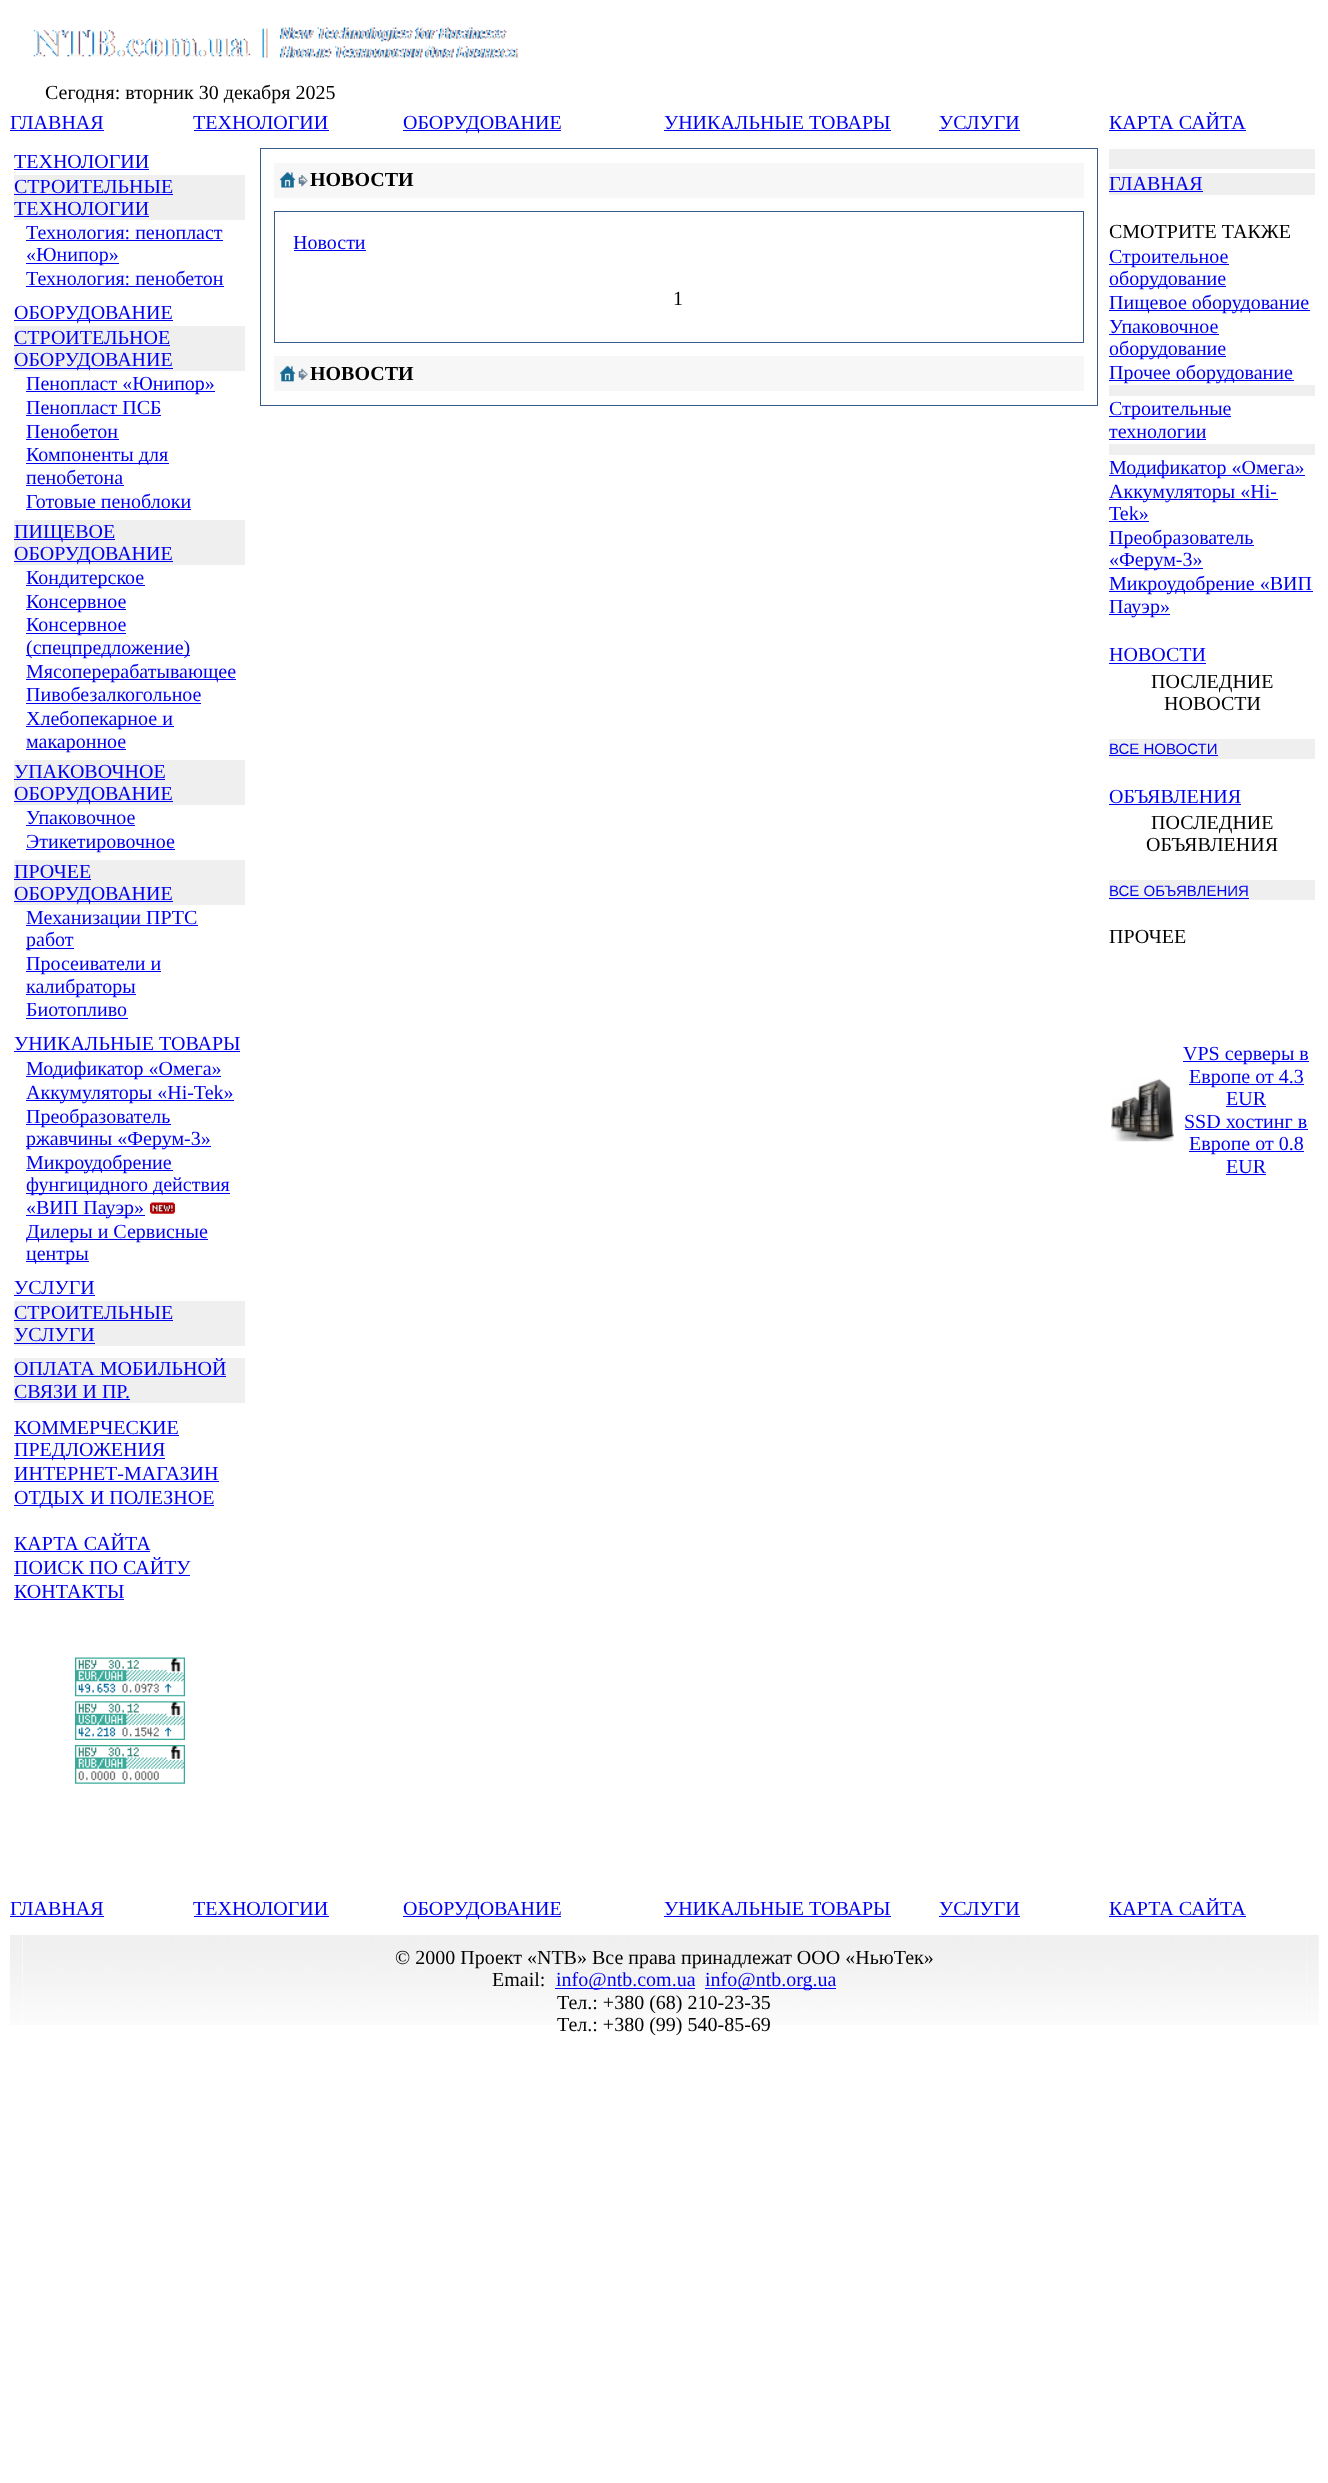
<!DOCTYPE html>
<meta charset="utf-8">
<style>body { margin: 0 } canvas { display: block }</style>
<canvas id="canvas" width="1328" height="2483"></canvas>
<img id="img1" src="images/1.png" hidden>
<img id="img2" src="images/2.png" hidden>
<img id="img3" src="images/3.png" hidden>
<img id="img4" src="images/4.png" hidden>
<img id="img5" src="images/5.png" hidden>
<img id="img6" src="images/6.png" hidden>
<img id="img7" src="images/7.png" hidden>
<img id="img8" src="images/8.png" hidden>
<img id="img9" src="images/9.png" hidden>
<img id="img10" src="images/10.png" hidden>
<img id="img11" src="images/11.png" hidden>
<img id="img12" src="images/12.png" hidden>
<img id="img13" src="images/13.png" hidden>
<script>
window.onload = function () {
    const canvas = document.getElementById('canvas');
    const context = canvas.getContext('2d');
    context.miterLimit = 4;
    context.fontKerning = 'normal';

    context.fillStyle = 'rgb(255, 255, 255)';
    context.fillRect(0, 0, 1328, 2483);
    context.drawImage(document.getElementById('img1'), 33, 27, 485, 31);
    context.fillStyle = 'rgb(0, 0, 238)';
    context.fillRect(10, 130, 94, 1);
    context.fillRect(194, 130, 135, 1);
    context.fillRect(403, 130, 158, 1);
    context.fillRect(664, 130, 227, 1);
    context.fillRect(939, 130, 81, 1);
    context.fillRect(1109, 130, 137, 1);
    context.fillRect(14, 169, 135, 1);
    context.fillStyle = 'rgb(239, 239, 239)';
    context.fillRect(14, 175, 231, 45);
    context.fillStyle = 'rgb(0, 0, 238)';
    context.fillRect(14, 194, 159, 1);
    context.fillRect(14, 216, 135, 1);
    context.fillRect(26, 240, 197, 1);
    context.fillRect(26, 263, 93, 1);
    context.fillRect(26, 286, 198, 1);
    context.fillRect(14, 320, 159, 1);
    context.fillStyle = 'rgb(239, 239, 239)';
    context.fillRect(14, 326, 231, 45);
    context.fillStyle = 'rgb(0, 0, 238)';
    context.fillRect(14, 345, 156, 1);
    context.fillRect(14, 368, 159, 1);
    context.fillRect(26, 391, 189, 1);
    context.fillRect(26, 415, 135, 1);
    context.fillRect(26, 439, 93, 1);
    context.fillRect(26, 463, 143, 1);
    context.fillRect(26, 485, 98, 1);
    context.fillRect(26, 509, 165, 1);
    context.fillStyle = 'rgb(239, 239, 239)';
    context.fillRect(14, 520, 231, 45);
    context.fillStyle = 'rgb(0, 0, 238)';
    context.fillRect(14, 539, 101, 1);
    context.fillRect(14, 561, 159, 1);
    context.fillRect(26, 585, 119, 1);
    context.fillRect(26, 609, 100, 1);
    context.fillRect(26, 633, 100, 1);
    context.fillRect(26, 655, 164, 1);
    context.fillRect(26, 679, 210, 1);
    context.fillRect(26, 703, 175, 1);
    context.fillRect(26, 726, 148, 1);
    context.fillRect(26, 749, 100, 1);
    context.fillStyle = 'rgb(239, 239, 239)';
    context.fillRect(14, 760, 231, 45);
    context.fillStyle = 'rgb(0, 0, 238)';
    context.fillRect(14, 779, 151, 1);
    context.fillRect(14, 801, 159, 1);
    context.fillRect(26, 825, 109, 1);
    context.fillRect(26, 849, 149, 1);
    context.fillStyle = 'rgb(239, 239, 239)';
    context.fillRect(14, 860, 231, 45);
    context.fillStyle = 'rgb(0, 0, 238)';
    context.fillRect(14, 879, 77, 1);
    context.fillRect(14, 901, 159, 1);
    context.fillRect(26, 925, 172, 1);
    context.fillRect(26, 948, 48, 1);
    context.fillRect(26, 971, 135, 1);
    context.fillRect(26, 994, 110, 1);
    context.fillRect(26, 1018, 102, 1);
    context.fillRect(14, 1051, 226, 1);
    context.fillRect(26, 1076, 195, 1);
    context.fillRect(26, 1100, 208, 1);
    context.fillRect(26, 1124, 145, 1);
    context.fillRect(26, 1146, 185, 1);
    context.fillRect(26, 1170, 147, 1);
    context.fillRect(26, 1193, 204, 1);
    context.fillRect(26, 1215, 119, 1);
    context.drawImage(document.getElementById('img2'), 150, 1202, 25, 12);
    context.fillRect(26, 1239, 182, 1);
    context.fillRect(26, 1261, 63, 1);
    context.fillRect(14, 1295, 81, 1);
    context.fillStyle = 'rgb(239, 239, 239)';
    context.fillRect(14, 1301, 231, 45);
    context.fillStyle = 'rgb(0, 0, 238)';
    context.fillRect(14, 1320, 159, 1);
    context.fillRect(14, 1343, 81, 1);
    context.fillStyle = 'rgb(239, 239, 239)';
    context.fillRect(14, 1358, 231, 45);
    context.fillStyle = 'rgb(0, 0, 238)';
    context.fillRect(14, 1376, 212, 1);
    context.fillRect(14, 1399, 116, 1);
    context.fillRect(14, 1435, 165, 1);
    context.fillRect(14, 1458, 151, 1);
    context.fillRect(14, 1481, 205, 1);
    context.fillRect(14, 1505, 200, 1);
    context.fillRect(14, 1551, 136, 1);
    context.fillRect(14, 1575, 176, 1);
    context.fillRect(14, 1599, 110, 1);
    context.drawImage(document.getElementById('img3'), 75, 1657, 110, 40);
    context.drawImage(document.getElementById('img4'), 75, 1701, 110, 39);
    context.drawImage(document.getElementById('img5'), 75, 1745, 110, 39);
    context.strokeStyle = 'rgb(57, 91, 136)';
    context.strokeRect(260.5, 148.5, 837, 257);
    context.fillStyle = 'rgb(247, 247, 247)';
    context.fillRect(274, 163, 810, 35);
    context.drawImage(document.getElementById('img6'), 279, 172, 17, 16);
    context.drawImage(document.getElementById('img7'), 298, 175, 10, 12);
    context.strokeRect(274.5, 211.5, 809, 131);
    context.fillStyle = 'rgb(0, 0, 238)';
    context.fillRect(294, 250, 72, 1);
    context.fillStyle = 'rgb(247, 247, 247)';
    context.fillRect(274, 356, 810, 35);
    context.drawImage(document.getElementById('img8'), 279, 366, 17, 16);
    context.drawImage(document.getElementById('img9'), 298, 368, 10, 12);
    context.fillStyle = 'rgb(239, 239, 239)';
    context.fillRect(1109, 149, 206, 20);
    context.fillRect(1109, 173, 206, 22);
    context.fillStyle = 'rgb(0, 0, 238)';
    context.fillRect(1109, 191, 94, 1);
    context.fillRect(1109, 264, 120, 1);
    context.fillRect(1109, 286, 117, 1);
    context.fillRect(1109, 310, 201, 1);
    context.fillRect(1109, 334, 110, 1);
    context.fillRect(1109, 356, 117, 1);
    context.fillRect(1109, 380, 185, 1);
    context.fillStyle = 'rgb(239, 239, 239)';
    context.fillRect(1109, 385, 206, 11);
    context.fillStyle = 'rgb(0, 0, 238)';
    context.fillRect(1109, 416, 122, 1);
    context.fillRect(1109, 439, 97, 1);
    context.fillStyle = 'rgb(239, 239, 239)';
    context.fillRect(1109, 444, 206, 11);
    context.fillStyle = 'rgb(0, 0, 238)';
    context.fillRect(1109, 475, 196, 1);
    context.fillRect(1109, 499, 169, 1);
    context.fillRect(1109, 521, 40, 1);
    context.fillRect(1109, 545, 145, 1);
    context.fillRect(1109, 568, 94, 1);
    context.fillRect(1109, 591, 204, 1);
    context.fillRect(1109, 614, 61, 1);
    context.fillRect(1109, 663, 97, 1);
    context.fillStyle = 'rgb(239, 239, 239)';
    context.fillRect(1109, 739, 206, 20);
    context.fillStyle = 'rgb(0, 0, 238)';
    context.fillRect(1109, 755, 109, 1);
    context.fillRect(1109, 804, 132, 1);
    context.fillStyle = 'rgb(239, 239, 239)';
    context.fillRect(1109, 880, 206, 20);
    context.fillStyle = 'rgb(0, 0, 238)';
    context.fillRect(1109, 898, 140, 1);
    context.drawImage(document.getElementById('img10'), 1111, 1078, 63, 64);
    context.fillRect(1183, 1061, 126, 1);
    context.fillRect(1189, 1084, 115, 1);
    context.fillRect(1226, 1106, 40, 1);
    context.fillRect(1185, 1129, 123, 1);
    context.fillRect(1189, 1151, 115, 1);
    context.fillRect(1226, 1174, 40, 1);
    context.fillRect(10, 1916, 94, 1);
    context.fillRect(194, 1916, 135, 1);
    context.fillRect(403, 1916, 158, 1);
    context.fillRect(664, 1916, 227, 1);
    context.fillRect(939, 1916, 81, 1);
    context.fillRect(1109, 1916, 137, 1);
    context.drawImage(document.getElementById('img11'), 10, 1935, 13, 90);
    context.drawImage(document.getElementById('img12'), 23, 1935, 1284, 90);
    context.fillRect(555, 1988, 140, 1);
    context.fillRect(705, 1988, 131, 1);
    context.drawImage(document.getElementById('img13'), 1306, 1935, 13, 90);
    context.font = '20px Liberation Serif';
    context.fillStyle = 'rgb(0, 0, 0)';
    context.fillText('Сегодня: вторник 30 декабря 2025', 45, 99);
    context.fillStyle = 'rgb(0, 0, 238)';
    context.fillText('ГЛАВНАЯ', 10, 129);
    context.fillText('ТЕХНОЛОГИИ', 193, 129);
    context.fillText('ОБОРУДОВАНИЕ', 403, 129);
    context.fillText('УНИКАЛЬНЫЕ ТОВАРЫ', 664, 129);
    context.fillText('УСЛУГИ', 939, 129);
    context.fillText('КАРТА САЙТА', 1109, 129);
    context.fillText('ТЕХНОЛОГИИ', 14, 168);
    context.fillText('СТРОИТЕЛЬНЫЕ', 14, 193);
    context.fillText('ТЕХНОЛОГИИ', 14, 215);
    context.fillText('Технология: пенопласт', 26, 239);
    context.fillText('«Юнипор»', 26, 261);
    context.fillText('Технология: пенобетон', 26, 285);
    context.fillText('ОБОРУДОВАНИЕ', 14, 319);
    context.fillText('СТРОИТЕЛЬНОЕ', 14, 344);
    context.fillText('ОБОРУДОВАНИЕ', 14, 366);
    context.fillText('Пенопласт «Юнипор»', 26, 390);
    context.fillText('Пенопласт ПСБ', 26, 414);
    context.fillText('Пенобетон', 26, 438);
    context.fillText('Компоненты для', 26, 461);
    context.fillText('пенобетона', 26, 484);
    context.fillText('Готовые пеноблоки', 26, 508);
    context.fillText('ПИЩЕВОЕ', 14, 538);
    context.fillText('ОБОРУДОВАНИЕ', 14, 560);
    context.fillText('Кондитерское', 26, 584);
    context.fillText('Консервное', 26, 608);
    context.fillText('Консервное', 26, 631);
    context.fillText('(спецпредложение)', 26, 654);
    context.fillText('Мясоперерабатывающее', 26, 678);
    context.fillText('Пивобезалкогольное', 26, 701);
    context.fillText('Хлебопекарное и', 26, 725);
    context.fillText('макаронное', 26, 748);
    context.fillText('УПАКОВОЧНОЕ', 14, 778);
    context.fillText('ОБОРУДОВАНИЕ', 14, 800);
    context.fillText('Упаковочное', 26, 824);
    context.fillText('Этикетировочное', 26, 848);
    context.fillText('ПРОЧЕЕ', 14, 878);
    context.fillText('ОБОРУДОВАНИЕ', 14, 900);
    context.fillText('Механизации ПРТС', 26, 924);
    context.fillText('работ', 26, 946);
    context.fillText('Просеиватели и', 26, 970);
    context.fillText('калибраторы', 26, 993);
    context.fillText('Биотопливо', 26, 1016);
    context.fillText('УНИКАЛЬНЫЕ ТОВАРЫ', 14, 1050);
    context.fillText('Модификатор «Омега»', 26, 1075);
    context.fillText('Аккумуляторы «Hi-Tek»', 26, 1099);
    context.fillText('Преобразователь', 26, 1123);
    context.fillText('ржавчины «Ферум-3»', 26, 1145);
    context.fillText('Микроудобрение', 26, 1169);
    context.fillText('фунгицидного действия', 26, 1191);
    context.fillText('«ВИП Пауэр»', 26, 1214);
    context.fillText('Дилеры и Сервисные', 26, 1238);
    context.fillText('центры', 26, 1260);
    context.fillText('УСЛУГИ', 14, 1294);
    context.fillText('СТРОИТЕЛЬНЫЕ', 14, 1319);
    context.fillText('УСЛУГИ', 14, 1341);
    context.fillText('ОПЛАТА МОБИЛЬНОЙ', 14, 1375);
    context.fillText('СВЯЗИ И ПР.', 14, 1398);
    context.fillText('КОММЕРЧЕСКИЕ', 14, 1434);
    context.fillText('ПРЕДЛОЖЕНИЯ', 14, 1456);
    context.fillText('ИНТЕРНЕТ-МАГАЗИН', 14, 1480);
    context.fillText('ОТДЫХ И ПОЛЕЗНОЕ', 14, 1504);
    context.fillText('КАРТА САЙТА', 14, 1550);
    context.fillText('ПОИСК ПО САЙТУ', 14, 1574);
    context.fillText('КОНТАКТЫ', 14, 1598);
    context.font = 'bold 20px Liberation Serif';
    context.fillStyle = 'rgb(0, 0, 0)';
    context.fillText('НОВОСТИ', 310, 186);
    context.font = '20px Liberation Serif';
    context.fillStyle = 'rgb(0, 0, 238)';
    context.fillText('Новости', 293, 249);
    context.fillStyle = 'rgb(0, 0, 0)';
    context.fillText('1', 673, 305);
    context.font = 'bold 20px Liberation Serif';
    context.fillText('НОВОСТИ', 310, 380);
    context.font = '20px Liberation Serif';
    context.fillStyle = 'rgb(0, 0, 238)';
    context.fillText('ГЛАВНАЯ', 1109, 190);
    context.fillStyle = 'rgb(0, 0, 0)';
    context.fillText('СМОТРИТЕ ТАКЖЕ', 1109, 238);
    context.fillStyle = 'rgb(0, 0, 238)';
    context.fillText('Строительное', 1109, 263);
    context.fillText('оборудование', 1109, 285);
    context.fillText('Пищевое оборудование', 1109, 309);
    context.fillText('Упаковочное', 1109, 333);
    context.fillText('оборудование', 1109, 355);
    context.fillText('Прочее оборудование', 1109, 379);
    context.fillText('Строительные', 1109, 415);
    context.fillText('технологии', 1109, 438);
    context.fillText('Модификатор «Омега»', 1109, 474);
    context.fillText('Аккумуляторы «Hi-', 1109, 498);
    context.fillText('Tek»', 1109, 520);
    context.fillText('Преобразователь', 1109, 544);
    context.fillText('«Ферум-3»', 1109, 566);
    context.fillText('Микроудобрение «ВИП', 1109, 590);
    context.fillText('Пауэр»', 1109, 613);
    context.fillText('НОВОСТИ', 1109, 661);
    context.fillStyle = 'rgb(0, 0, 0)';
    context.fillText('ПОСЛЕДНИЕ', 1151, 688);
    context.fillText('НОВОСТИ', 1164, 710);
    context.font = '15px Liberation Sans';
    context.fillStyle = 'rgb(0, 0, 238)';
    context.fillText('ВСЕ НОВОСТИ', 1109, 754);
    context.font = '20px Liberation Serif';
    context.fillText('ОБЪЯВЛЕНИЯ', 1109, 803);
    context.fillStyle = 'rgb(0, 0, 0)';
    context.fillText('ПОСЛЕДНИЕ', 1151, 829);
    context.fillText('ОБЪЯВЛЕНИЯ', 1146, 851);
    context.font = '15px Liberation Sans';
    context.fillStyle = 'rgb(0, 0, 238)';
    context.fillText('ВСЕ ОБЪЯВЛЕНИЯ', 1109, 896);
    context.font = '20px Liberation Serif';
    context.fillStyle = 'rgb(0, 0, 0)';
    context.fillText('ПРОЧЕЕ', 1109, 943);
    context.fillStyle = 'rgb(0, 0, 238)';
    context.fillText('VPS серверы в', 1183, 1060);
    context.fillText('Европе от 4.3', 1189, 1083);
    context.fillText('EUR', 1226, 1105);
    context.fillText('SSD хостинг в', 1184, 1128);
    context.fillText('Европе от 0.8', 1189, 1150);
    context.fillText('EUR', 1226, 1173);
    context.fillText('ГЛАВНАЯ', 10, 1915);
    context.fillText('ТЕХНОЛОГИИ', 193, 1915);
    context.fillText('ОБОРУДОВАНИЕ', 403, 1915);
    context.fillText('УНИКАЛЬНЫЕ ТОВАРЫ', 664, 1915);
    context.fillText('УСЛУГИ', 939, 1915);
    context.fillText('КАРТА САЙТА', 1109, 1915);
    context.fillStyle = 'rgb(0, 0, 0)';
    context.fillText('© 2000 Проект «NTB» Все права принадлежат ООО «НьюТек»', 395, 1964);
    context.fillText('Email:', 492, 1986);
    context.fillStyle = 'rgb(0, 0, 238)';
    context.fillText('info@ntb.com.ua', 556, 1986);
    context.fillText('info@ntb.org.ua', 705, 1986);
    context.fillStyle = 'rgb(0, 0, 0)';
    context.fillText('Тел.: +380 (68) 210-23-35', 557, 2009);
    context.fillText('Тел.: +380 (99) 540-85-69', 557, 2031);
};
</script>
